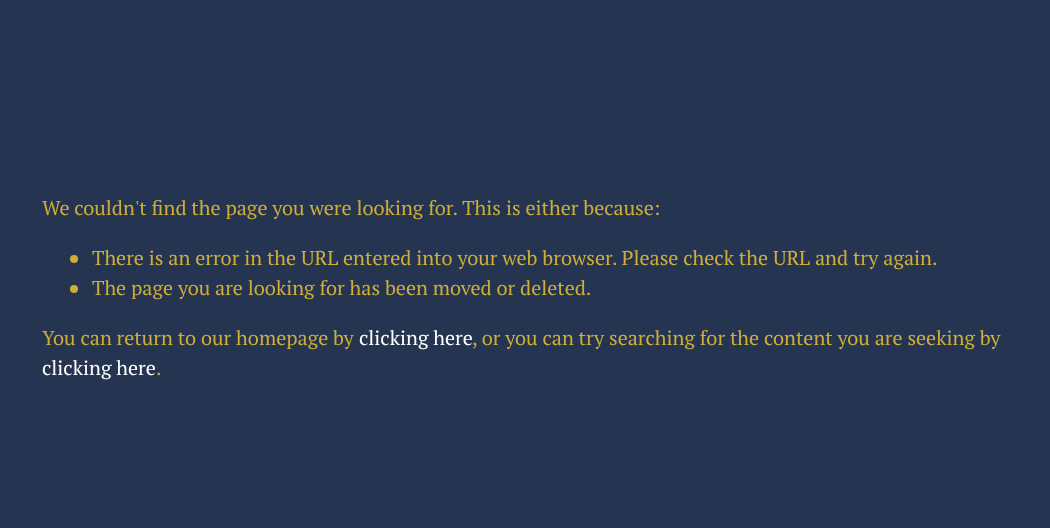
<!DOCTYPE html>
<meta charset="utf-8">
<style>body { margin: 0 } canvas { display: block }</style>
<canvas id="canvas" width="1050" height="528"></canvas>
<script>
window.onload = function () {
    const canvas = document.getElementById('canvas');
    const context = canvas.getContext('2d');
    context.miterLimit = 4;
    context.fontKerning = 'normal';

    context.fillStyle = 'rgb(37, 53, 81)';
    context.fillRect(0, 0, 1050, 528);
    context.fillStyle = 'rgb(206, 174, 54)';
    context.beginPath();
    context.arc(74, 259, 4, 0, 2 * Math.PI);
    context.fill();
    context.beginPath();
    context.arc(74, 289, 4, 0, 2 * Math.PI);
    context.fill();
    context.font = '20px PT Serif';
    context.fillText('We couldn\'t find the page you were looking for. This is either because:', 42, 215);
    context.fillText('There is an error in the URL entered into your web browser. Please check the URL and try again.', 92, 265);
    context.fillText('The page you are looking for has been moved or deleted.', 92, 295);
    context.fillText('You can return to our homepage by', 42, 345);
    context.fillStyle = 'rgb(255, 255, 255)';
    context.fillText('clicking here', 359, 345);
    context.fillStyle = 'rgb(206, 174, 54)';
    context.fillText(', or you can try searching for the content you are seeking by', 472, 345);
    context.fillStyle = 'rgb(255, 255, 255)';
    context.fillText('clicking here', 42, 375);
    context.fillStyle = 'rgb(206, 174, 54)';
    context.fillText('.', 156, 375);
};
</script>
